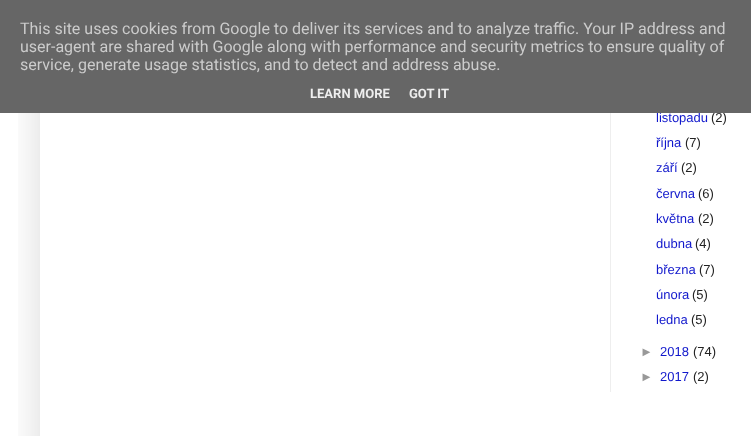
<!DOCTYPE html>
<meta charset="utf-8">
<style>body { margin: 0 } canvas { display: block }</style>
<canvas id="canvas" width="751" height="436"></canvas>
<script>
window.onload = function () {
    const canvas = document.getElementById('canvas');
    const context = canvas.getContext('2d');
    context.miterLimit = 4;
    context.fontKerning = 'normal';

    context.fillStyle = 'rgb(255, 255, 255)';
    context.fillRect(0, 0, 751, 436);
    context.save();
    context.beginPath();
    context.rect(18, 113, 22, 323);
    context.clip();
    context.fillStyle = 'rgba(0, 0, 0, 0.15)';
    context.filter = 'blur(20px)';
    context.beginPath();
    context.rect(40, -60, 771, 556);
    context.fill();
    context.filter = 'none';
    context.restore();
    context.fillStyle = 'rgb(238, 238, 238)';
    context.fillRect(610, 113, 1, 279);
    context.font = '13px Liberation Sans';
    context.fillStyle = 'rgb(17, 24, 204)';
    context.fillText('listopadu', 656, 122);
    context.fillStyle = 'rgb(34, 34, 34)';
    context.fillText('(2)', 711, 122);
    context.fillStyle = 'rgb(102, 102, 102)';
    context.fillRect(0, 0, 751, 113);
    context.font = 'bold 13px Roboto';
    context.fillStyle = 'rgb(238, 238, 238)';
    context.fillText('GOT IT', 409, 98);
    context.fillText('LEARN MORE', 310, 98);
    context.font = '16px Roboto';
    context.fillStyle = 'rgb(204, 204, 204)';
    context.fillText('service, generate usage statistics, and to detect and address abuse.', 20, 70);
    context.fillText('user-agent are shared with Google along with performance and security metrics to ensure quality of', 20, 52);
    context.fillText('This site uses cookies from Google to deliver its services and to analyze traffic. Your IP address and', 20, 34);
    context.font = '13px Liberation Sans';
    context.fillStyle = 'rgb(17, 24, 204)';
    context.fillText('října', 656, 147);
    context.fillStyle = 'rgb(34, 34, 34)';
    context.fillText('(7)', 685, 147);
    context.fillStyle = 'rgb(17, 24, 204)';
    context.fillText('září', 656, 172);
    context.fillStyle = 'rgb(34, 34, 34)';
    context.fillText('(2)', 681, 172);
    context.fillStyle = 'rgb(17, 24, 204)';
    context.fillText('června', 656, 198);
    context.fillStyle = 'rgb(34, 34, 34)';
    context.fillText('(6)', 698, 198);
    context.fillStyle = 'rgb(17, 24, 204)';
    context.fillText('května', 656, 223);
    context.fillStyle = 'rgb(34, 34, 34)';
    context.fillText('(2)', 698, 223);
    context.fillStyle = 'rgb(17, 24, 204)';
    context.fillText('dubna', 656, 248);
    context.fillStyle = 'rgb(34, 34, 34)';
    context.fillText('(4)', 695, 248);
    context.fillStyle = 'rgb(17, 24, 204)';
    context.fillText('března', 656, 274);
    context.fillStyle = 'rgb(34, 34, 34)';
    context.fillText('(7)', 699, 274);
    context.fillStyle = 'rgb(17, 24, 204)';
    context.fillText('února', 656, 299);
    context.fillStyle = 'rgb(34, 34, 34)';
    context.fillText('(5)', 692, 299);
    context.fillStyle = 'rgb(17, 24, 204)';
    context.fillText('ledna', 656, 324);
    context.fillStyle = 'rgb(34, 34, 34)';
    context.fillText('(5)', 691, 324);
    context.fillStyle = 'rgb(153, 153, 153)';
    context.fillText('►', 640, 356);
    context.fillStyle = 'rgb(17, 24, 204)';
    context.fillText('2018', 660, 356);
    context.fillStyle = 'rgb(34, 34, 34)';
    context.fillText('(74)', 693, 356);
    context.fillStyle = 'rgb(153, 153, 153)';
    context.fillText('►', 640, 381);
    context.fillStyle = 'rgb(17, 24, 204)';
    context.fillText('2017', 660, 381);
    context.fillStyle = 'rgb(34, 34, 34)';
    context.fillText('(2)', 693, 381);
};
</script>
